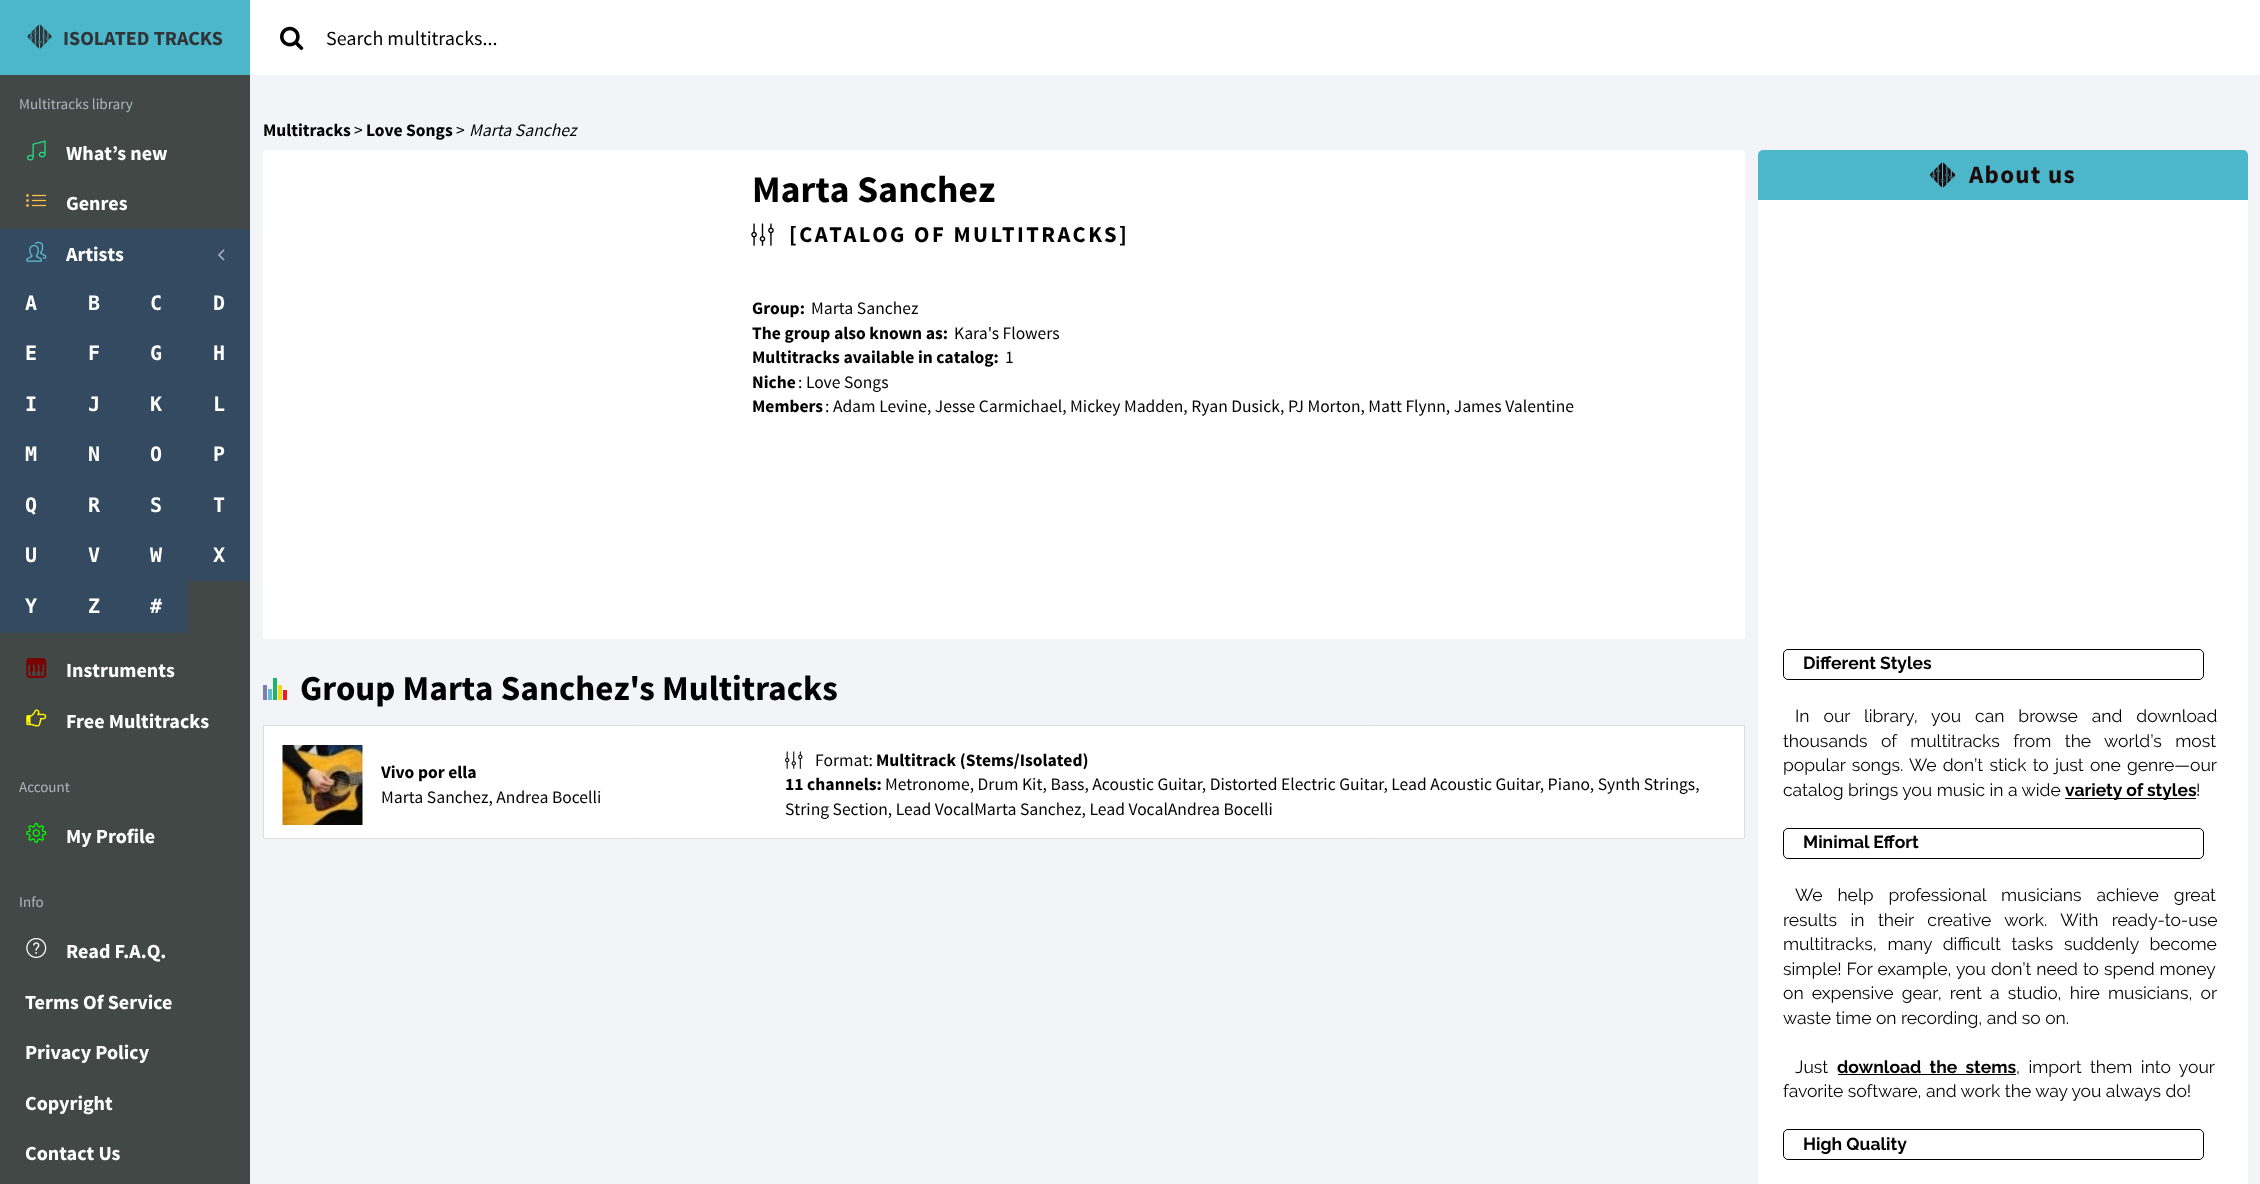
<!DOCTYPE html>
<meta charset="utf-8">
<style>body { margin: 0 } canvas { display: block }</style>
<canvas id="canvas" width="2260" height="1184"></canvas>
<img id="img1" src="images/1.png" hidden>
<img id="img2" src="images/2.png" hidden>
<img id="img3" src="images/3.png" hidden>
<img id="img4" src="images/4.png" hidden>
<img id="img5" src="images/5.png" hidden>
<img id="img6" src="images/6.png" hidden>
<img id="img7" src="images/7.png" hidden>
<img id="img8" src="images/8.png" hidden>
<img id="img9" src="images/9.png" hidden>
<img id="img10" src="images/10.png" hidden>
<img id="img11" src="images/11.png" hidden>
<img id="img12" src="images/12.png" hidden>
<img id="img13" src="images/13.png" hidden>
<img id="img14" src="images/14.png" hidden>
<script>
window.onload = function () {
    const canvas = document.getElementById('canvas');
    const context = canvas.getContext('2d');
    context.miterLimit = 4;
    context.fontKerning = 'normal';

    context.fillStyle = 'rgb(242, 244, 248)';
    context.fillRect(0, 0, 2260, 1184);
    context.fillStyle = 'rgb(76, 182, 203)';
    context.fillRect(0, 0, 250, 75);
    context.drawImage(document.getElementById('img1'), 27, 24, 25, 25);
    context.fillStyle = 'rgb(255, 255, 255)';
    context.fillRect(250, 0, 2010, 75);
    context.drawImage(document.getElementById('img2'), 280, 26, 24, 24);
    context.fillStyle = 'rgb(66, 72, 69)';
    context.fillRect(0, 75, 250, 1109);
    context.drawImage(document.getElementById('img3'), 26, 140, 20, 21);
    context.drawImage(document.getElementById('img4'), 26, 194, 21, 13);
    context.fillStyle = 'rgb(52, 74, 97)';
    context.fillRect(0, 229, 250, 50);
    context.drawImage(document.getElementById('img5'), 26, 241, 21, 21);
    context.drawImage(document.getElementById('img6'), 218, 249, 7, 12);
    context.fillRect(0, 279, 250, 50);
    context.fillRect(0, 329, 250, 51);
    context.fillRect(0, 380, 250, 50);
    context.fillRect(0, 430, 250, 51);
    context.fillRect(0, 481, 250, 50);
    context.fillRect(0, 531, 250, 50);
    context.fillRect(0, 581, 188, 52);
    context.drawImage(document.getElementById('img7'), 26, 658, 21, 20);
    context.drawImage(document.getElementById('img8'), 26, 709, 21, 18);
    context.drawImage(document.getElementById('img9'), 26, 823, 21, 20);
    context.drawImage(document.getElementById('img10'), 26, 938, 21, 20);
    context.fillStyle = 'rgb(255, 255, 255)';
    context.beginPath();
    context.roundRect(263, 150, 1482, 489, 2.5);
    context.fill();
    context.drawImage(document.getElementById('img11'), 751, 223, 23, 23);
    context.fillStyle = 'rgb(121, 127, 180)';
    context.fillRect(263, 685, 4, 15);
    context.fillStyle = 'rgb(98, 188, 206)';
    context.fillRect(268, 689, 4, 11);
    context.fillStyle = 'rgb(26, 182, 103)';
    context.fillRect(273, 678, 4, 22);
    context.fillStyle = 'rgb(252, 212, 23)';
    context.fillRect(278, 685, 4, 15);
    context.fillStyle = 'rgb(242, 27, 27)';
    context.fillRect(283, 690, 4, 10);
    context.fillStyle = 'rgb(255, 255, 255)';
    context.beginPath();
    context.rect(263.5, 725.5, 1481, 113);
    context.fill();
    context.strokeStyle = 'rgb(221, 221, 221)';
    context.stroke();
    context.drawImage(document.getElementById('img12'), 282, 745, 81, 80);
    context.drawImage(document.getElementById('img13'), 785, 751, 18, 18);
    context.fillStyle = 'rgb(76, 182, 203)';
    context.beginPath();
    context.roundRect(1758, 150, 490, 50, [5, 5, 0, 0]);
    context.fill();
    context.drawImage(document.getElementById('img14'), 1930, 162, 26, 26);
    context.fillStyle = 'rgb(255, 255, 255)';
    context.fillRect(1758, 200, 490, 984);
    context.beginPath();
    context.roundRect(1783.5, 649.5, 420, 30, 4.5);
    context.strokeStyle = 'rgb(0, 0, 0)';
    context.stroke();
    context.fillStyle = 'rgb(0, 0, 0)';
    context.fillRect(2065, 798, 131, 1);
    context.beginPath();
    context.roundRect(1783.5, 828.5, 420, 30, 4.5);
    context.stroke();
    context.fillRect(1838, 1074, 178, 1);
    context.beginPath();
    context.roundRect(1783.5, 1129.5, 420, 30, 4.5);
    context.stroke();
    context.font = 'bold 20px Source Sans Pro';
    context.fillStyle = 'rgb(48, 52, 55)';
    context.fillText('ISOLATED TRACKS', 63, 45);
    context.font = '20px Source Sans Pro';
    context.fillStyle = 'rgb(0, 0, 0)';
    context.fillText('Search multitracks...', 326, 45);
    context.font = '15px Source Sans Pro';
    context.fillStyle = 'rgb(172, 183, 193)';
    context.fillText('Multitracks library', 19, 109);
    context.font = 'bold 20px Source Sans Pro';
    context.fillStyle = 'rgb(255, 255, 255)';
    context.fillText('What’s new', 66, 160);
    context.fillText('Genres', 66, 210);
    context.fillText('Artists', 66, 261);
    context.font = 'bold 20px DejaVu Sans Mono';
    context.fillText('A', 25, 310);
    context.fillText('B', 88, 310);
    context.fillText('C', 150, 310);
    context.fillText('D', 213, 310);
    context.fillText('E', 25, 360);
    context.fillText('F', 88, 360);
    context.fillText('G', 150, 360);
    context.fillText('H', 213, 360);
    context.fillText('I', 25, 411);
    context.fillText('J', 88, 411);
    context.fillText('K', 150, 411);
    context.fillText('L', 213, 411);
    context.fillText('M', 25, 461);
    context.fillText('N', 88, 461);
    context.fillText('O', 150, 461);
    context.fillText('P', 213, 461);
    context.fillText('Q', 25, 512);
    context.fillText('R', 88, 512);
    context.fillText('S', 150, 512);
    context.fillText('T', 213, 512);
    context.fillText('U', 25, 562);
    context.fillText('V', 88, 562);
    context.fillText('W', 150, 562);
    context.fillText('X', 213, 562);
    context.fillText('Y', 25, 613);
    context.fillText('Z', 88, 613);
    context.fillText('#', 150, 613);
    context.font = 'bold 20px Source Sans Pro';
    context.fillText('Instruments', 66, 677);
    context.fillText('Free Multitracks', 66, 728);
    context.font = '15px Source Sans Pro';
    context.fillStyle = 'rgb(172, 183, 193)';
    context.fillText('Account', 19, 792);
    context.font = 'bold 20px Source Sans Pro';
    context.fillStyle = 'rgb(255, 255, 255)';
    context.fillText('My Profile', 66, 843);
    context.font = '15px Source Sans Pro';
    context.fillStyle = 'rgb(172, 183, 193)';
    context.fillText('Info', 19, 907);
    context.font = 'bold 20px Source Sans Pro';
    context.fillStyle = 'rgb(255, 255, 255)';
    context.fillText('Read F.A.Q.', 66, 958);
    context.fillText('Terms Of Service', 25, 1009);
    context.fillText('Privacy Policy', 25, 1059);
    context.fillText('Copyright', 25, 1110);
    context.fillText('Contact Us', 25, 1160);
    context.font = 'bold 17.5px Source Sans Pro';
    context.fillStyle = 'rgb(0, 0, 0)';
    context.fillText('Multitracks', 263, 136);
    context.font = '17.5px Source Sans Pro';
    context.fillText('>', 354, 136);
    context.font = 'bold 17.5px Source Sans Pro';
    context.fillText('Love Songs', 366, 136);
    context.font = '17.5px Source Sans Pro';
    context.fillText('>', 456, 136);
    context.font = 'italic 17.5px Source Sans Pro';
    context.fillText('Marta Sanchez', 469, 136);
    context.font = 'bold 37.5px Source Sans Pro';
    context.fillText('Marta Sanchez', 752, 202);
    context.letterSpacing = '2.5px';
    context.font = 'bold 22.5px Source Sans Pro';
    context.fillText('[CATALOG OF MULTITRACKS]', 789, 242);
    context.letterSpacing = '0px';
    context.font = 'bold 17.5px Source Sans Pro';
    context.fillText('Group:', 752, 314);
    context.font = '17.5px Source Sans Pro';
    context.fillText('Marta Sanchez', 811, 314);
    context.font = 'bold 17.5px Source Sans Pro';
    context.fillText('The group also known as:', 752, 339);
    context.font = '17.5px Source Sans Pro';
    context.fillText('Kara\'s Flowers', 954, 339);
    context.font = 'bold 17.5px Source Sans Pro';
    context.fillText('Multitracks available in catalog:', 752, 363);
    context.font = '17.5px Source Sans Pro';
    context.fillText('1', 1005, 363);
    context.font = 'bold 17.5px Source Sans Pro';
    context.fillText('Niche', 752, 388);
    context.font = '17.5px Source Sans Pro';
    context.fillText(': Love Songs', 798, 388);
    context.font = 'bold 17.5px Source Sans Pro';
    context.fillText('Members', 752, 412);
    context.font = '17.5px Source Sans Pro';
    context.fillText(': Adam Levine, Jesse Carmichael, Mickey Madden, Ryan Dusick, PJ Morton, Matt Flynn, James Valentine', 825, 412);
    context.font = 'bold 35px Source Sans Pro';
    context.fillText('Group Marta Sanchez\'s Multitracks', 300, 700);
    context.font = 'bold 17.5px Source Sans Pro';
    context.fillText('Vivo por ella', 381, 778);
    context.font = '17.5px Source Sans Pro';
    context.fillText('Marta Sanchez, Andrea Bocelli', 381, 803);
    context.fillText('Format:', 815, 766);
    context.font = 'bold 17.5px Source Sans Pro';
    context.fillText('Multitrack (Stems/Isolated)', 876, 766);
    context.fillText('11 channels:', 785, 790);
    context.font = '17.5px Source Sans Pro';
    context.fillText('Metronome, Drum Kit, Bass, Acoustic Guitar, Distorted Electric Guitar, Lead Acoustic Guitar, Piano, Synth Strings,', 885, 790);
    context.fillText('String Section, Lead VocalMarta Sanchez, Lead VocalAndrea Bocelli', 785, 815);
    context.letterSpacing = '1.25px';
    context.font = 'bold 25px Source Sans Pro';
    context.fillStyle = 'rgb(30, 12, 12)';
    context.fillText('About us', 1969, 183);
    context.letterSpacing = '0px';
    context.font = 'bold 17.5px Raleway';
    context.fillStyle = 'rgb(0, 0, 0)';
    context.fillText('Different Styles', 1803, 669);
    context.wordSpacing = '9.5px';
    context.font = '17.5px Raleway';
    context.fillText('In our library, you can browse and download', 1795, 722);
    context.wordSpacing = '9px';
    context.fillText('thousands of multitracks from the world’s most', 1783, 747);
    context.wordSpacing = '1.75px';
    context.fillText('popular songs. We don’t stick to just one genre—our', 1783, 771);
    context.wordSpacing = '0px';
    context.fillText('catalog brings you music in a wide', 1783, 796);
    context.font = 'bold 17.5px Raleway';
    context.fillText('variety of styles', 2065, 796);
    context.font = '17.5px Raleway';
    context.fillText('!', 2196, 796);
    context.font = 'bold 17.5px Raleway';
    context.fillText('Minimal Effort', 1803, 848);
    context.wordSpacing = '10.5px';
    context.font = '17.5px Raleway';
    context.fillText('We help professional musicians achieve great', 1795, 901);
    context.wordSpacing = '9px';
    context.fillText('results in their creative work. With ready-to-use', 1783, 926);
    context.wordSpacing = '6.25px';
    context.fillText('multitracks, many difficult tasks suddenly become', 1783, 950);
    context.wordSpacing = '0.5px';
    context.fillText('simple! For example, you don’t need to spend money', 1783, 975);
    context.wordSpacing = '3.75px';
    context.fillText('on expensive gear, rent a studio, hire musicians, or', 1783, 999);
    context.wordSpacing = '0px';
    context.fillText('waste time on recording, and so on.', 1783, 1024);
    context.fillText('Just', 1795, 1073);
    context.wordSpacing = '4px';
    context.font = 'bold 17.5px Raleway';
    context.fillText('download the stems', 1837, 1073);
    context.font = '17.5px Raleway';
    context.fillText(', import them into your', 2016, 1073);
    context.wordSpacing = '0px';
    context.fillText('favorite software, and work the way you always do!', 1783, 1097);
    context.font = 'bold 17.5px Raleway';
    context.fillText('High Quality', 1803, 1150);
};
</script>
